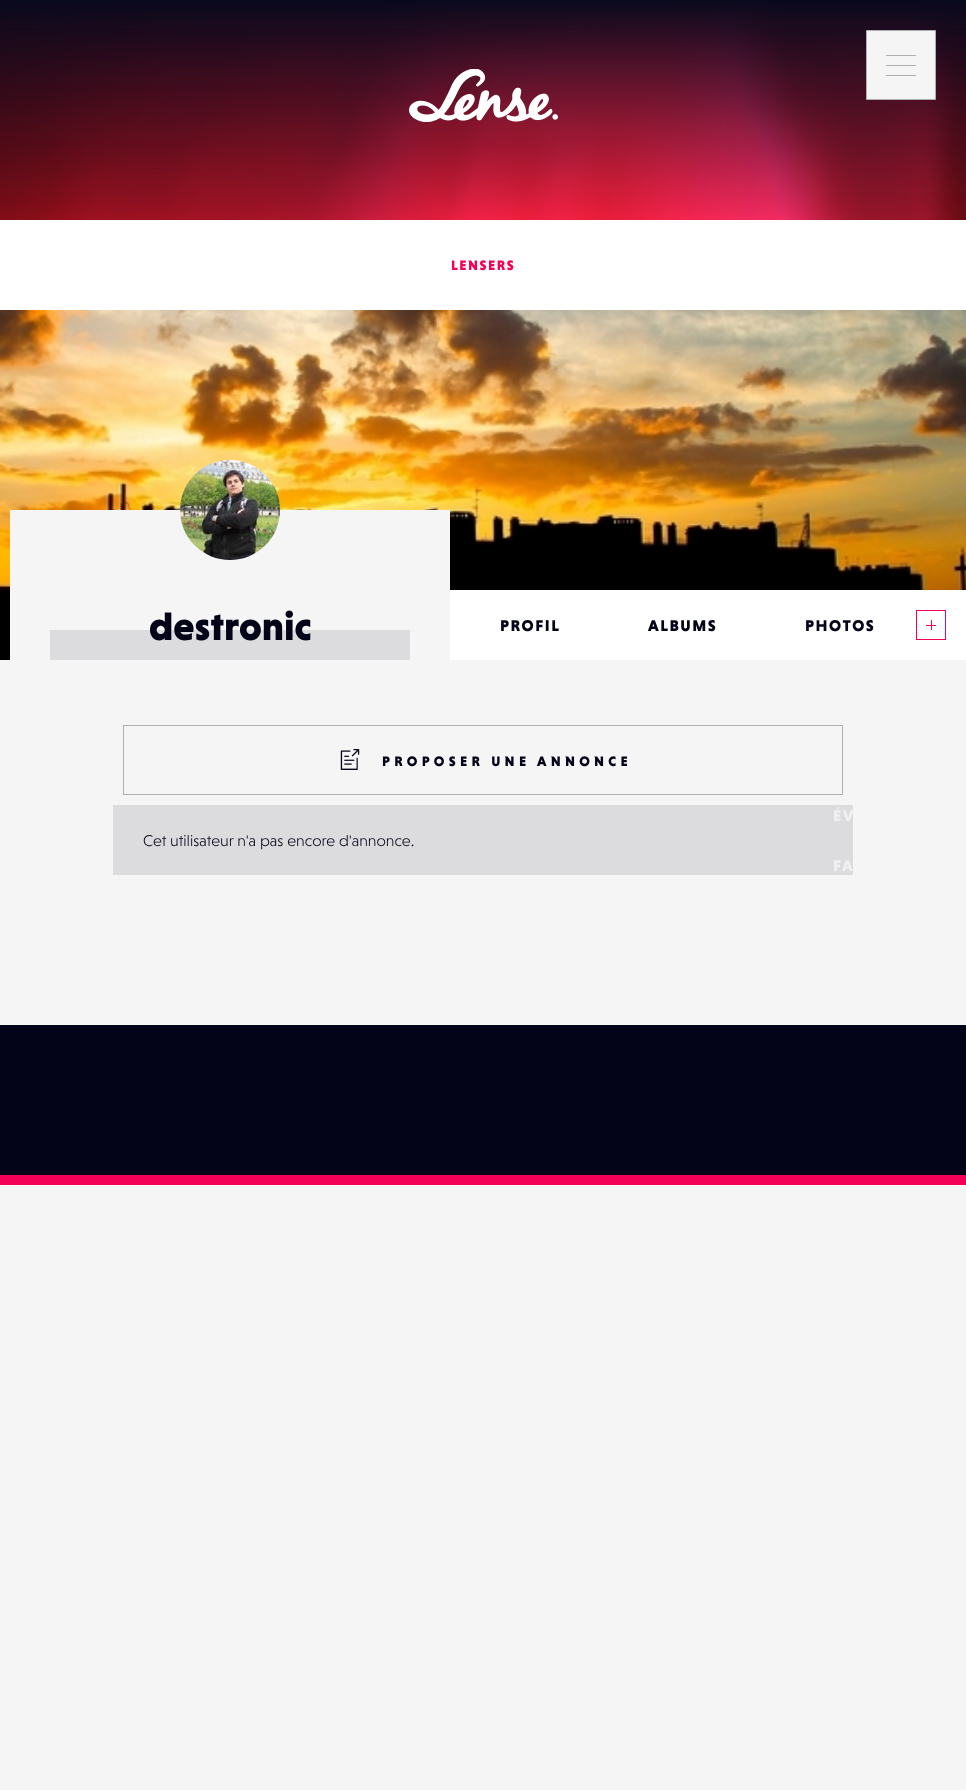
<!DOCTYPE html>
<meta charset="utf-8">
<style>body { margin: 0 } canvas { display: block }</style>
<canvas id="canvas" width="966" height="1790"></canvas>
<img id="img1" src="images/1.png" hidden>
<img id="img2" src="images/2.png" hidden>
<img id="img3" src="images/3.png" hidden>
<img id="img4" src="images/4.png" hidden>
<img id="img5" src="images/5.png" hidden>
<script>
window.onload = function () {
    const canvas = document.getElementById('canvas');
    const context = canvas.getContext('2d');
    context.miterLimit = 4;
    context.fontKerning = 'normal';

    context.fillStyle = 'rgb(245, 245, 245)';
    context.fillRect(0, 0, 966, 1790);
    context.drawImage(document.getElementById('img1'), 0, 0, 966, 220);
    context.beginPath();
    context.rect(866.5, 30.5, 69, 69);
    context.fill();
    context.strokeStyle = 'rgb(173, 173, 179)';
    context.stroke();
    context.fillStyle = 'rgb(173, 173, 179)';
    context.fillRect(886, 55, 30, 1);
    context.fillRect(886, 65, 30, 1);
    context.fillRect(886, 75, 30, 1);
    context.drawImage(document.getElementById('img2'), 409, 69, 149, 53);
    context.fillStyle = 'rgb(255, 255, 255)';
    context.fillRect(0, 220, 966, 90);
    context.drawImage(document.getElementById('img3'), 0, 310, 966, 350);
    context.fillStyle = 'rgb(245, 245, 245)';
    context.fillRect(10, 510, 440, 150);
    context.drawImage(document.getElementById('img4'), 180, 460, 100, 100);
    context.fillStyle = 'rgb(220, 220, 222)';
    context.fillRect(50, 630, 360, 30);
    context.strokeRect(123.5, 725.5, 719, 69);
    context.drawImage(document.getElementById('img5'), 340, 749, 20, 21);
    context.fillRect(113, 805, 740, 70);
    context.fillStyle = 'rgb(255, 255, 255)';
    context.fillRect(450, 590, 516, 70);
    context.strokeStyle = 'rgb(245, 0, 87)';
    context.strokeRect(916.5, 610.5, 29, 29);
    context.fillStyle = 'rgb(245, 0, 87)';
    context.fillRect(926, 625, 10, 1);
    context.fillRect(931, 620, 1, 10);
    context.fillStyle = 'rgb(4, 4, 24)';
    context.fillRect(0, 1025, 966, 150);
    context.fillStyle = 'rgb(245, 0, 87)';
    context.fillRect(0, 1175, 966, 10);
    context.letterSpacing = '1.5px';
    context.font = '900 14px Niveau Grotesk';
    context.fillText('LENSERS', 451, 270);
    context.letterSpacing = '0px';
    context.font = '900 40px Niveau Grotesk';
    context.fillStyle = 'rgb(4, 4, 24)';
    context.fillText('destronic', 149, 640);
    context.letterSpacing = '4.25px';
    context.font = '900 14px Niveau Grotesk';
    context.fillText('PROPOSER UNE ANNONCE', 382, 766);
    context.letterSpacing = '0px';
    context.font = '300 16px Niveau Grotesk';
    context.fillText('Cet utilisateur n\'a pas encore d\'annonce.', 143, 846);
    context.letterSpacing = '1.5px';
    context.font = '900 16px Niveau Grotesk';
    context.fillText('PROFIL', 500, 631);
    context.fillText('ALBUMS', 648, 631);
    context.fillText('PHOTOS', 805, 631);
    context.fillStyle = 'rgb(240, 240, 241)';
    context.fillText('ÉV', 833, 821);
    context.fillText('FA', 833, 871);
};
</script>
